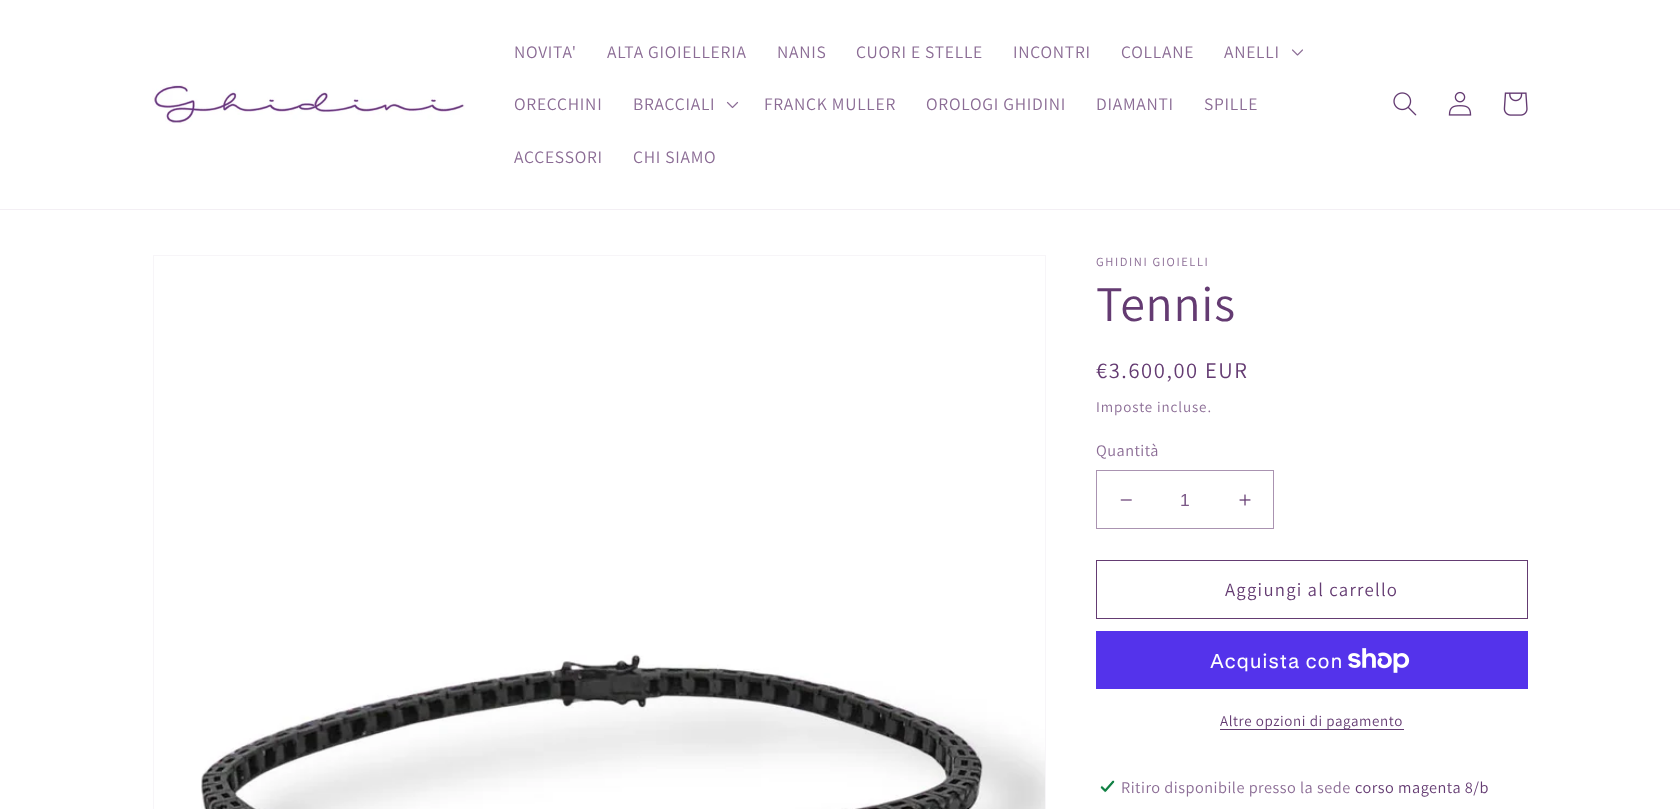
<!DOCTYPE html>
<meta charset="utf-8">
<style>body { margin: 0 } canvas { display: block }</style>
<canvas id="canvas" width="1680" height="809"></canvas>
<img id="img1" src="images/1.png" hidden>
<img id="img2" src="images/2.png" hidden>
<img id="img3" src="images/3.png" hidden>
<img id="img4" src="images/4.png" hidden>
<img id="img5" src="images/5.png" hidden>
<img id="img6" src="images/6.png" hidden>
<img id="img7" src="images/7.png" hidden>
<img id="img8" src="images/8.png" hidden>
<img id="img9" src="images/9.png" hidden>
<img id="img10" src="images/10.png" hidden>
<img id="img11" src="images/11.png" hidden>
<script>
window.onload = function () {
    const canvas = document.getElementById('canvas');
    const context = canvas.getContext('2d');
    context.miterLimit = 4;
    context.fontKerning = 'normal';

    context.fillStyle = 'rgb(255, 255, 255)';
    context.fillRect(0, 0, 1680, 809);
    context.fillStyle = 'rgb(243, 239, 244)';
    context.fillRect(0, 209, 1680, 1);
    context.drawImage(document.getElementById('img1'), 152, 85, 313, 39);
    context.drawImage(document.getElementById('img2'), 1292, 49, 11, 7);
    context.drawImage(document.getElementById('img3'), 726, 101, 13, 8);
    context.drawImage(document.getElementById('img4'), 1393, 92, 24, 24);
    context.drawImage(document.getElementById('img5'), 1448, 91, 24, 25);
    context.drawImage(document.getElementById('img6'), 1503, 92, 25, 24);
    context.strokeStyle = 'rgb(247, 245, 248)';
    context.strokeRect(153.5, 255.5, 892, 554);
    context.drawImage(document.getElementById('img7'), 201, 654, 844, 155);
    context.drawImage(document.getElementById('img8'), 1120, 499, 12, 2);
    context.drawImage(document.getElementById('img9'), 1239, 494, 12, 12);
    context.strokeStyle = 'rgb(170, 147, 177)';
    context.strokeRect(1096.5, 470.5, 177, 58);
    context.strokeStyle = 'rgb(100, 59, 114)';
    context.strokeRect(1096.5, 560.5, 431, 58);
    context.fillStyle = 'rgb(84, 51, 235)';
    context.fillRect(1096, 631, 432, 58);
    context.drawImage(document.getElementById('img10'), 1348, 648, 62, 25);
    context.fillStyle = 'rgb(100, 59, 114)';
    context.fillRect(1220, 729, 184, 1);
    context.drawImage(document.getElementById('img11'), 1100, 780, 15, 13);
    context.letterSpacing = '0.75px';
    context.font = '17.5px Assistant';
    context.fillStyle = 'rgb(139, 108, 149)';
    context.fillText('NOVITA\'', 514, 58);
    context.fillText('ALTA GIOIELLERIA', 607, 58);
    context.fillText('NANIS', 777, 58);
    context.fillText('CUORI E STELLE', 856, 58);
    context.fillText('INCONTRI', 1013, 58);
    context.fillText('COLLANE', 1121, 58);
    context.fillText('ANELLI', 1224, 58);
    context.fillText('ORECCHINI', 514, 110);
    context.fillText('BRACCIALI', 633, 110);
    context.fillText('FRANCK MULLER', 764, 110);
    context.fillText('OROLOGI GHIDINI', 926, 110);
    context.fillText('DIAMANTI', 1096, 110);
    context.fillText('SPILLE', 1204, 110);
    context.fillText('ACCESSORI', 514, 163);
    context.fillText('CHI SIAMO', 633, 163);
    context.letterSpacing = '1.6px';
    context.font = '12.5px Assistant';
    context.fillText('GHIDINI GIOIELLI', 1096, 266);
    context.letterSpacing = '0.75px';
    context.font = '50px Assistant';
    context.fillStyle = 'rgb(100, 59, 114)';
    context.fillText('Tennis', 1096, 321);
    context.letterSpacing = '1.6px';
    context.font = '22.5px Assistant';
    context.fillText('€3.600,00 EUR', 1096, 378);
    context.letterSpacing = '0.9px';
    context.font = '15px Assistant';
    context.fillStyle = 'rgb(139, 108, 149)';
    context.fillText('Imposte incluse.', 1096, 412);
    context.letterSpacing = '0.5px';
    context.font = '16.25px Assistant';
    context.fillText('Quantità', 1096, 456);
    context.letterSpacing = '0px';
    context.font = '17.5px Liberation Sans';
    context.fillStyle = 'rgb(123, 88, 135)';
    context.fillText('1', 1180, 506);
    context.letterSpacing = '1.25px';
    context.font = '18.75px Assistant';
    context.fillStyle = 'rgb(100, 59, 114)';
    context.fillText('Aggiungi al carrello', 1225, 596);
    context.letterSpacing = '0.75px';
    context.font = '20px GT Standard';
    context.fillStyle = 'rgb(255, 255, 255)';
    context.fillText('Acquista con', 1210, 668);
    context.letterSpacing = '0.6px';
    context.font = '15px Assistant';
    context.fillStyle = 'rgb(100, 59, 114)';
    context.fillText('Altre opzioni di pagamento', 1220, 726);
    context.letterSpacing = '0.5px';
    context.font = '16.25px Assistant';
    context.fillStyle = 'rgb(139, 108, 149)';
    context.fillText('Ritiro disponibile presso la sede', 1121, 793);
    context.fillStyle = 'rgb(100, 59, 114)';
    context.fillText('corso magenta 8/b', 1355, 793);
};
</script>
